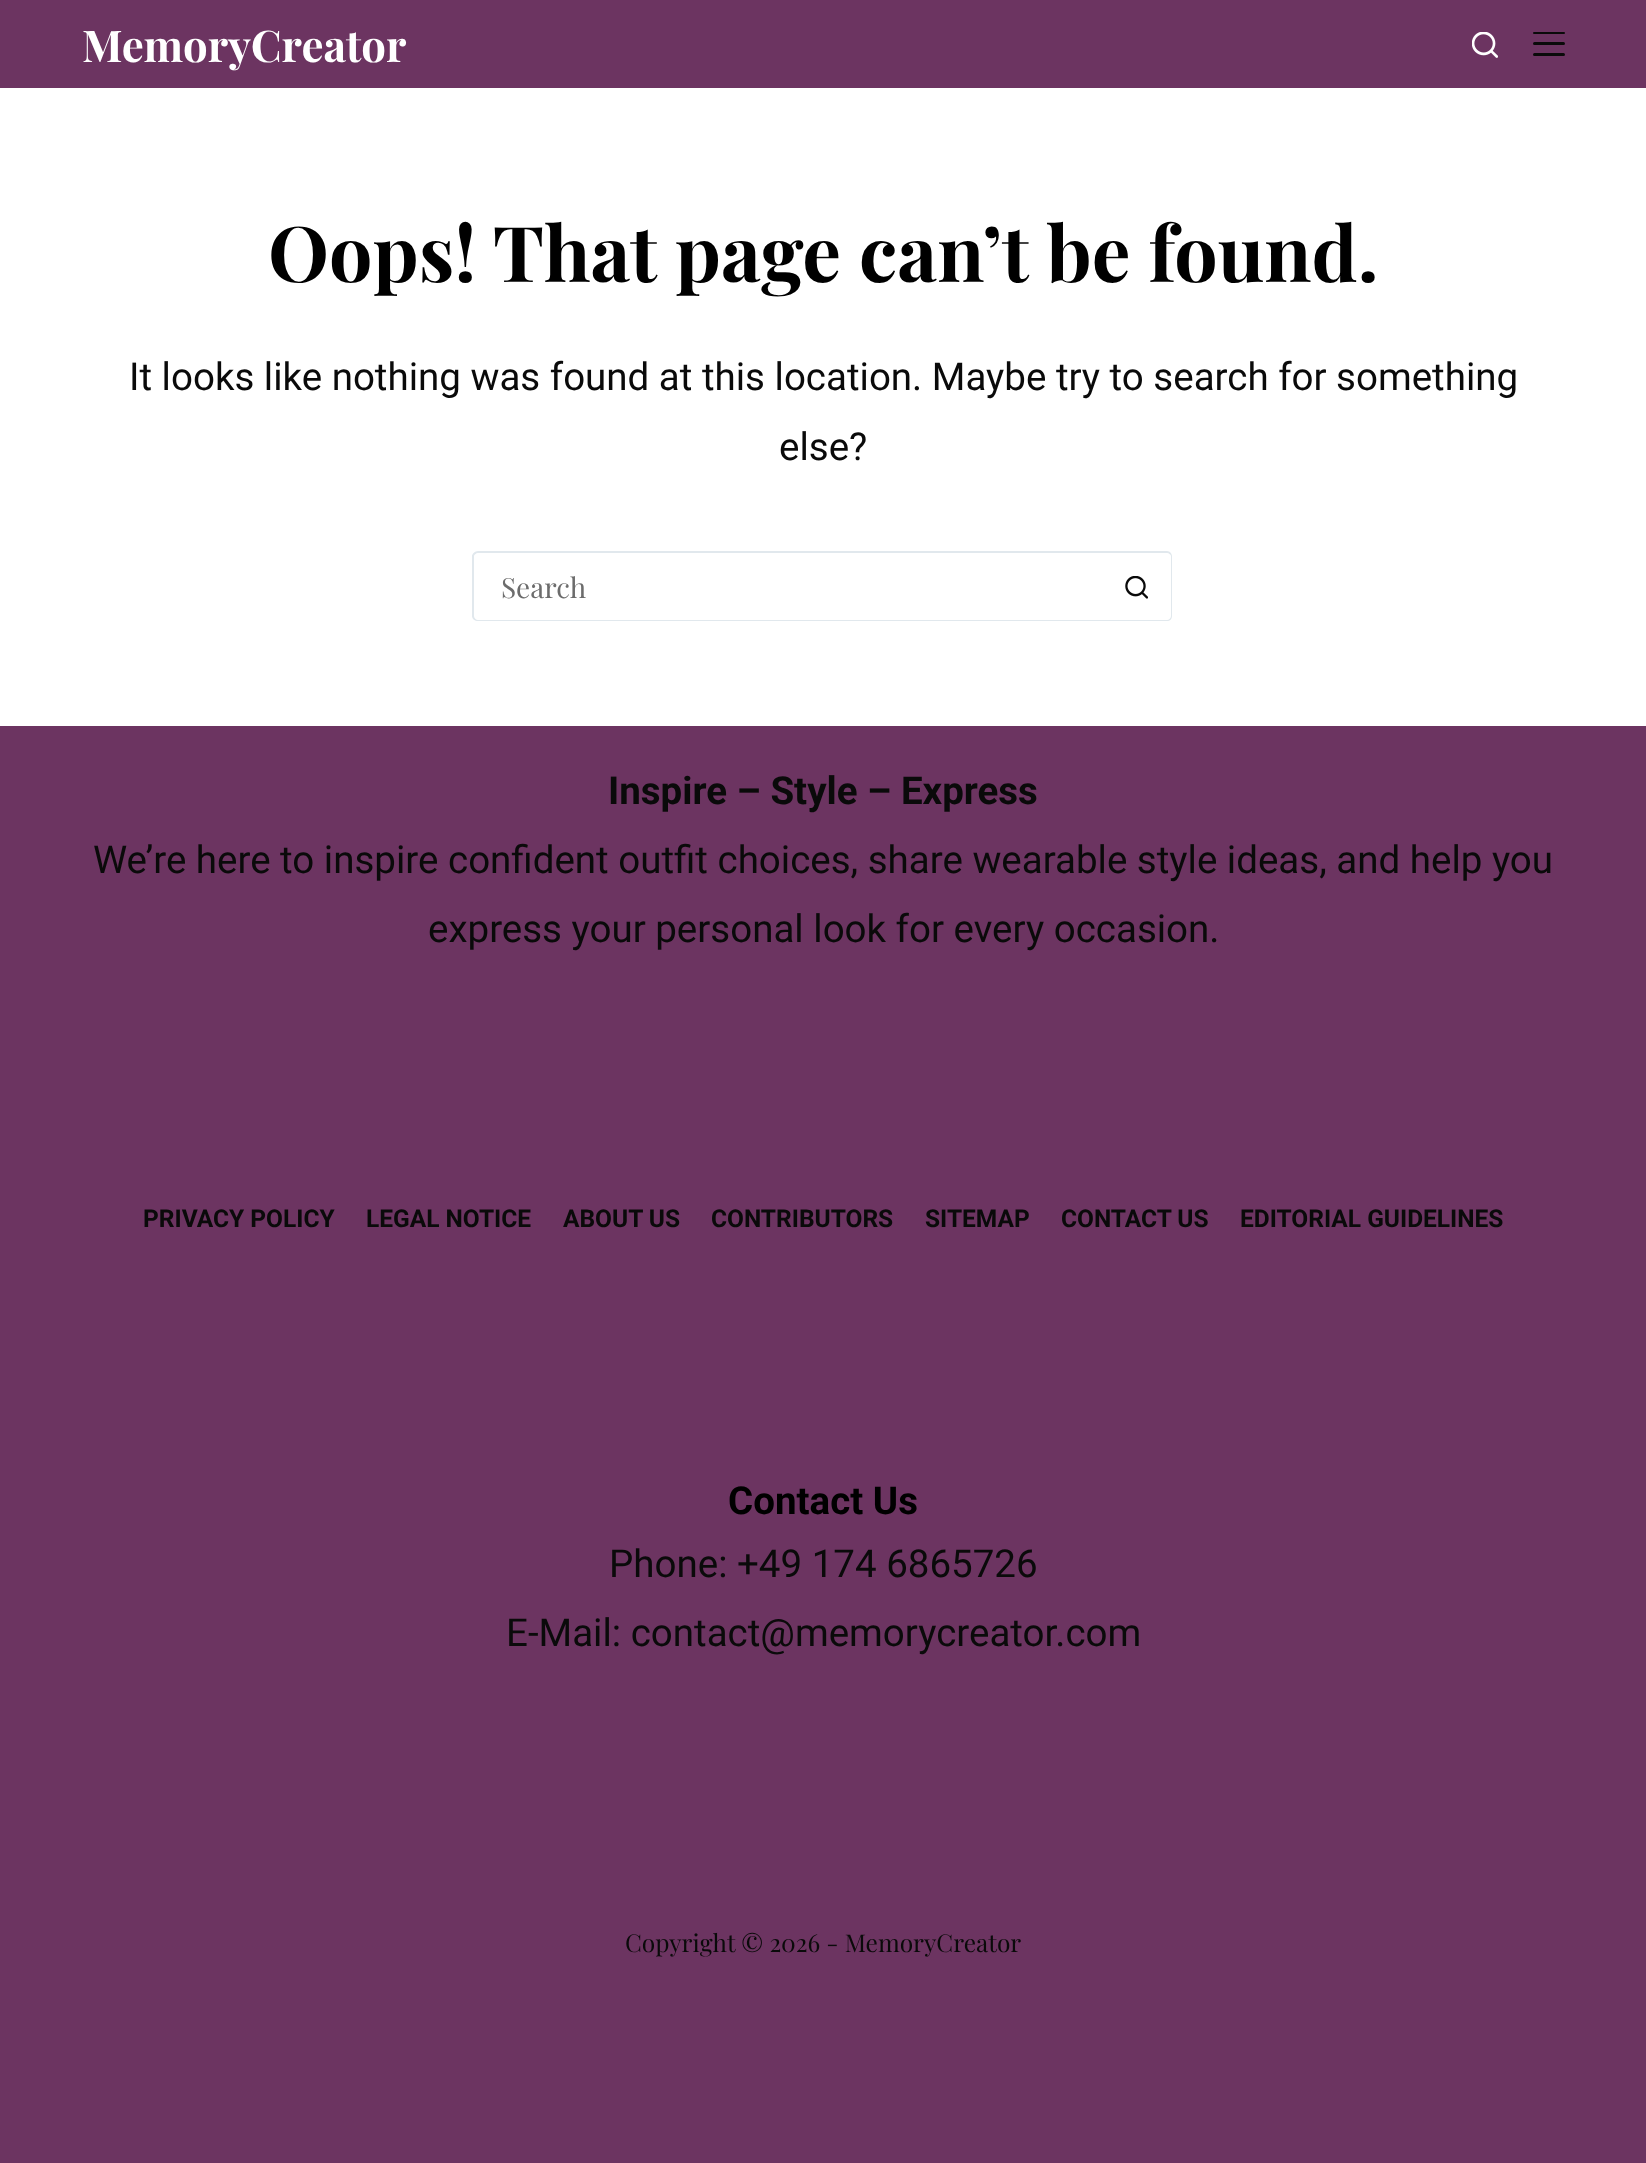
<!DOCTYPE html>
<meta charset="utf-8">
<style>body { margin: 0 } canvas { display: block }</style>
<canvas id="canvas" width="1646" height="2163"></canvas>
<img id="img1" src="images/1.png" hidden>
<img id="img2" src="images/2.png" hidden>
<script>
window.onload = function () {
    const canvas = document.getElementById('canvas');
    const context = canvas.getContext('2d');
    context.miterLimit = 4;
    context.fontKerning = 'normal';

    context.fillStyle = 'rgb(255, 255, 255)';
    context.fillRect(0, 0, 1646, 2163);
    context.fillStyle = 'rgb(108, 52, 97)';
    context.fillRect(0, 0, 1646, 88);
    context.drawImage(document.getElementById('img1'), 1472, 32, 26, 26);
    context.fillStyle = 'rgb(10, 10, 10)';
    context.beginPath();
    context.roundRect(1533, 32, 32, 2, 1);
    context.fill();
    context.beginPath();
    context.roundRect(1533, 42, 32, 3, 1.5);
    context.fill();
    context.beginPath();
    context.roundRect(1533, 53, 32, 3, 1.5);
    context.fill();
    context.fillStyle = 'rgb(225, 232, 237)';
    context.beginPath();
    context.moveTo(478, 551);
    context.lineTo(1102, 551);
    context.lineTo(1102, 621);
    context.lineTo(478, 621);
    context.bezierCurveTo(475, 621, 472, 619, 472, 616);
    context.lineTo(472, 556);
    context.bezierCurveTo(472, 554, 475, 551, 478, 551);
    context.closePath();
    context.moveTo(478, 553);
    context.lineTo(1102, 553);
    context.lineTo(1102, 620);
    context.lineTo(478, 620);
    context.bezierCurveTo(476, 620, 474, 618, 474, 616);
    context.lineTo(474, 556);
    context.bezierCurveTo(474, 555, 476, 553, 478, 553);
    context.closePath();
    context.fill('evenodd');
    context.beginPath();
    context.moveTo(1102, 551);
    context.lineTo(1167, 551);
    context.bezierCurveTo(1170, 551, 1172, 554, 1172, 556);
    context.lineTo(1172, 616);
    context.bezierCurveTo(1172, 619, 1170, 621, 1167, 621);
    context.lineTo(1102, 621);
    context.closePath();
    context.moveTo(1102, 553);
    context.lineTo(1167, 553);
    context.bezierCurveTo(1169, 553, 1171, 555, 1171, 556);
    context.lineTo(1171, 616);
    context.bezierCurveTo(1171, 618, 1169, 620, 1167, 620);
    context.lineTo(1102, 620);
    context.closePath();
    context.fill('evenodd');
    context.drawImage(document.getElementById('img2'), 1125, 576, 23, 23);
    context.fillStyle = 'rgb(108, 52, 97)';
    context.fillRect(0, 726, 1646, 1437);
    context.font = 'bold 43.75px Playfair Display';
    context.fillStyle = 'rgb(255, 255, 255)';
    context.fillText('MemoryCreator', 82, 62);
    context.font = 'bold 77px Playfair Display';
    context.fillStyle = 'rgb(0, 0, 0)';
    context.fillText('Oops! That page can’t be found.', 268, 282);
    context.font = '38.5px Roboto';
    context.fillStyle = 'rgb(10, 10, 10)';
    context.fillText('It looks like nothing was found at this location. Maybe try to search for something', 129, 390);
    context.fillText('else?', 779, 460);
    context.font = '28px Playfair Display';
    context.fillStyle = 'rgb(108, 108, 108)';
    context.fillText('Search', 501, 598);
    context.font = 'bold 38.5px Roboto';
    context.fillStyle = 'rgb(10, 10, 10)';
    context.fillText('Inspire – Style – Express', 608, 804);
    context.font = '38.5px Roboto';
    context.fillText('We’re here to inspire confident outfit choices, share wearable style ideas, and help you', 93, 873);
    context.fillText('express your personal look for every occasion.', 428, 942);
    context.font = 'bold 24.5px Roboto';
    context.fillText('PRIVACY POLICY', 143, 1227);
    context.fillText('LEGAL NOTICE', 366, 1227);
    context.fillText('ABOUT US', 563, 1227);
    context.fillText('CONTRIBUTORS', 711, 1227);
    context.fillText('SITEMAP', 925, 1227);
    context.fillText('CONTACT US', 1061, 1227);
    context.fillText('EDITORIAL GUIDELINES', 1240, 1227);
    context.font = 'bold 38.5px Roboto';
    context.fillStyle = 'rgb(0, 0, 0)';
    context.fillText('Contact Us', 728, 1514);
    context.font = '38.5px Roboto';
    context.fillStyle = 'rgb(10, 10, 10)';
    context.fillText('Phone: +49 174 6865726', 609, 1577);
    context.fillText('E-Mail: contact@memorycreator.com', 506, 1646);
    context.font = '24.5px Playfair Display';
    context.fillText('Copyright © 2026 - MemoryCreator', 625, 1952);
};
</script>
